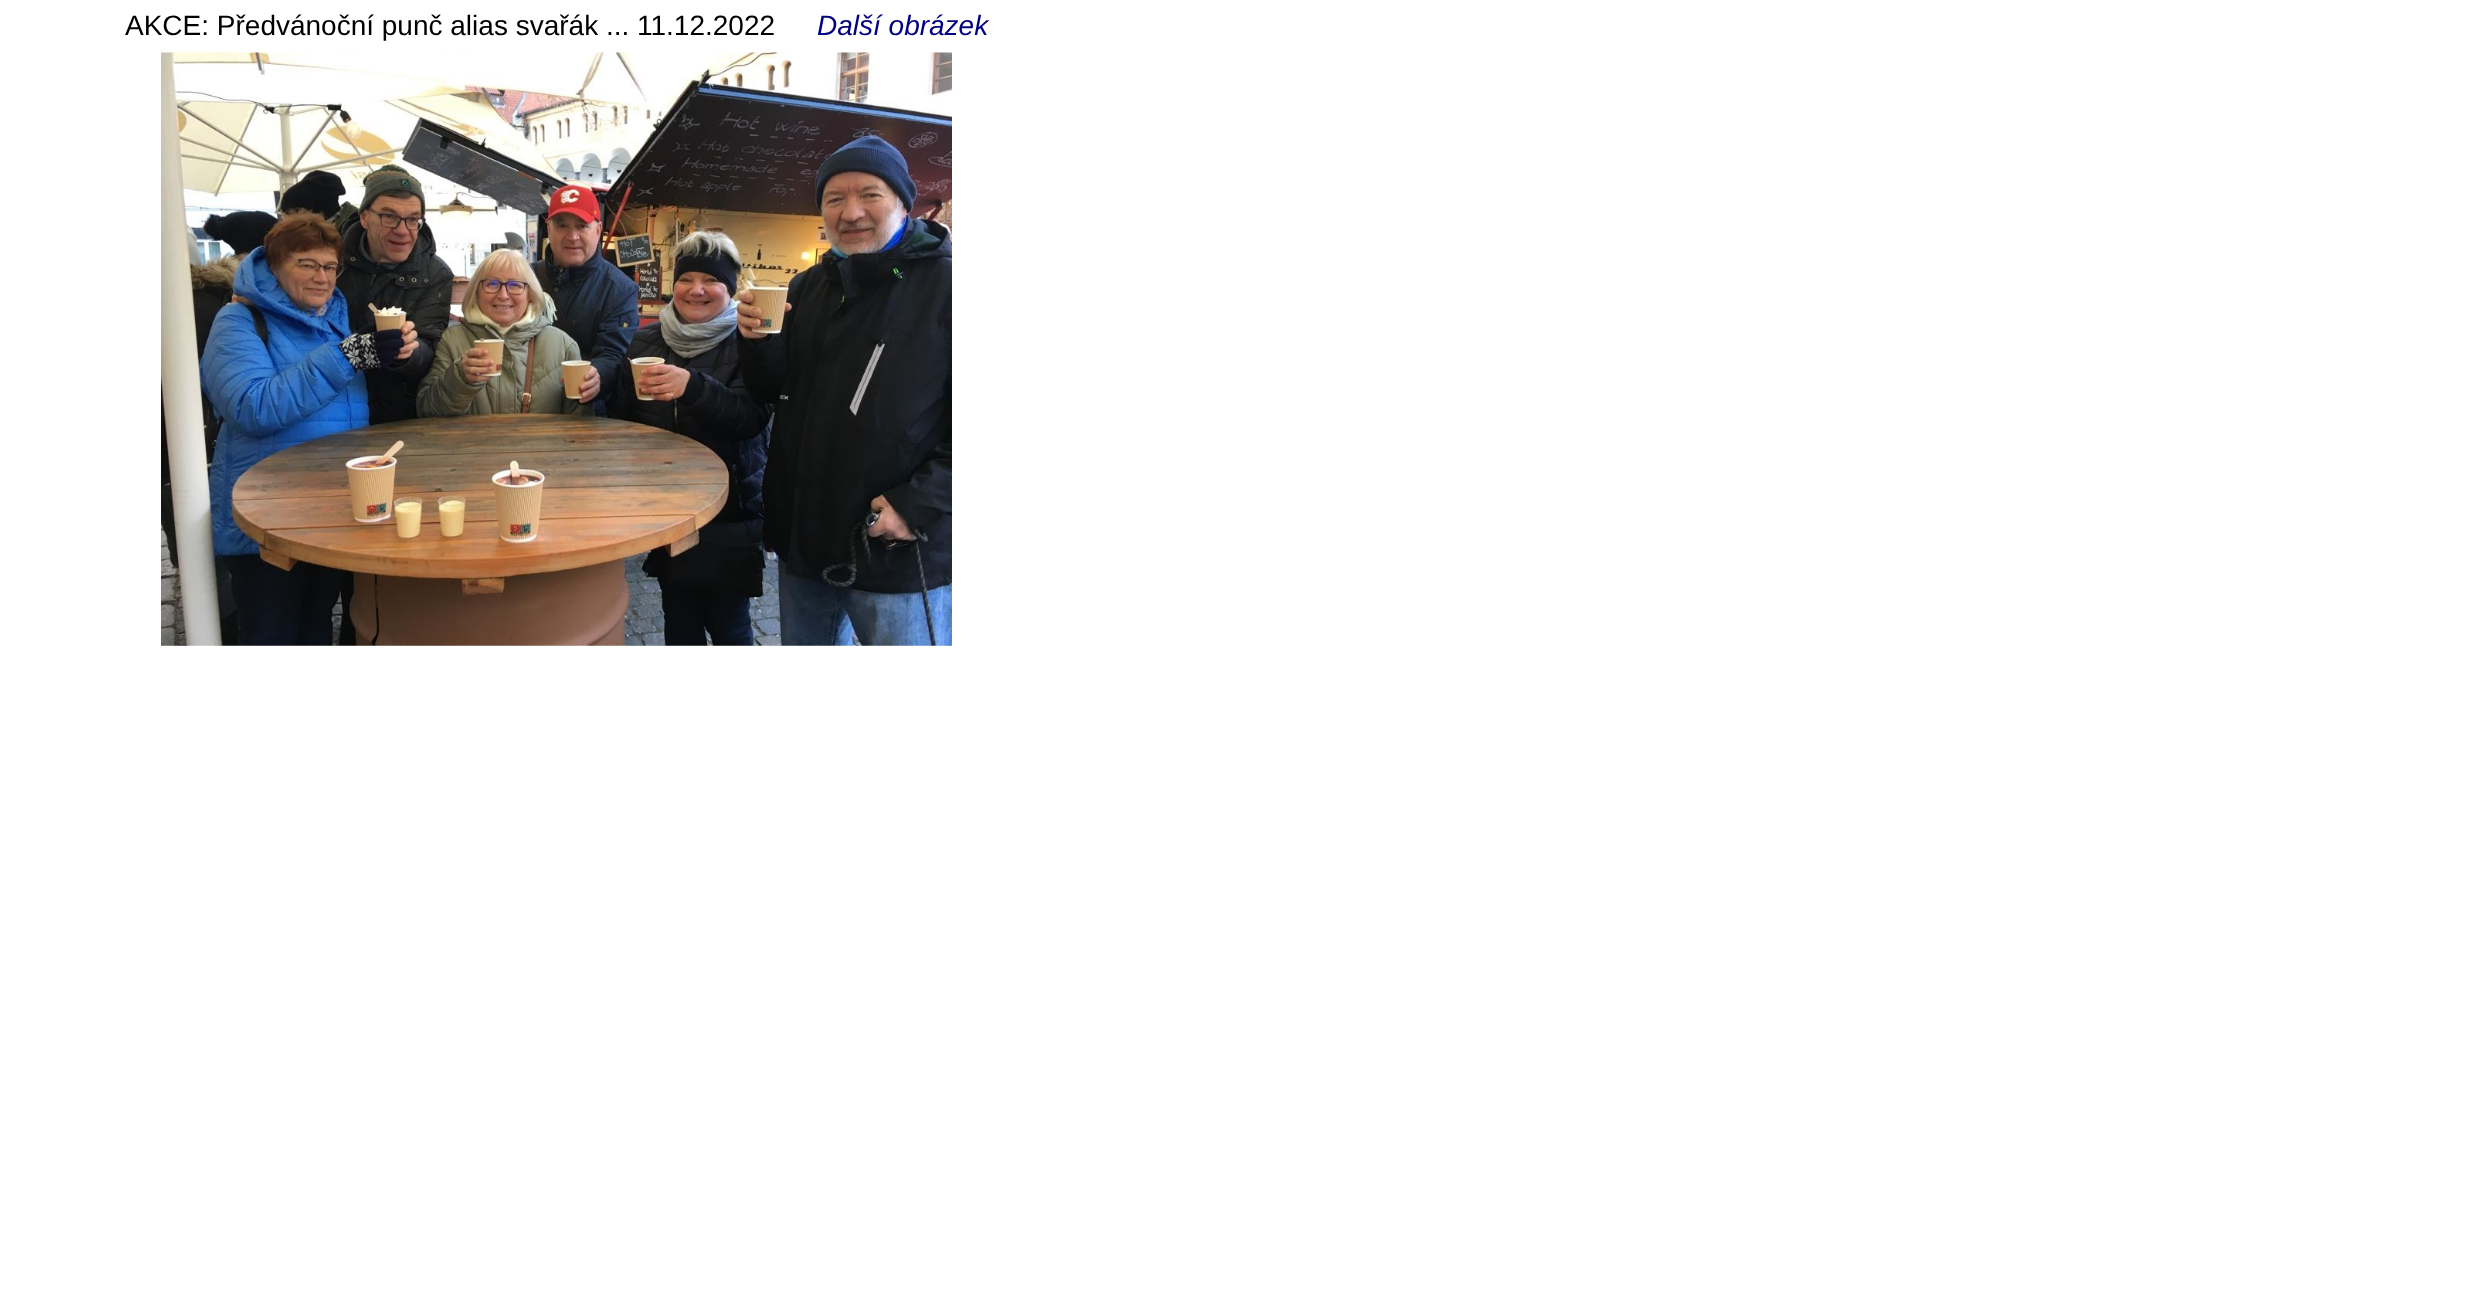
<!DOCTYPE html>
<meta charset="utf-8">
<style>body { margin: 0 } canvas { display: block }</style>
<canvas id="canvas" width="2466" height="1292"></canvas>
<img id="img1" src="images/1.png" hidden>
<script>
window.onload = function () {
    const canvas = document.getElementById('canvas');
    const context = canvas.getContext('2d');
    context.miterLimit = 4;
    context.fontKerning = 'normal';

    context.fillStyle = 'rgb(255, 255, 255)';
    context.fillRect(0, 0, 2466, 1292);
    context.drawImage(document.getElementById('img1'), 161, 52, 791, 594);
    context.font = '28px Liberation Sans';
    context.fillStyle = 'rgb(0, 0, 0)';
    context.fillText('AKCE: Předvánoční punč alias svařák ... 11.12.2022', 125, 35);
    context.font = 'italic 28px Liberation Sans';
    context.fillStyle = 'rgb(0, 0, 128)';
    context.fillText('Další obrázek', 817, 35);
};
</script>
